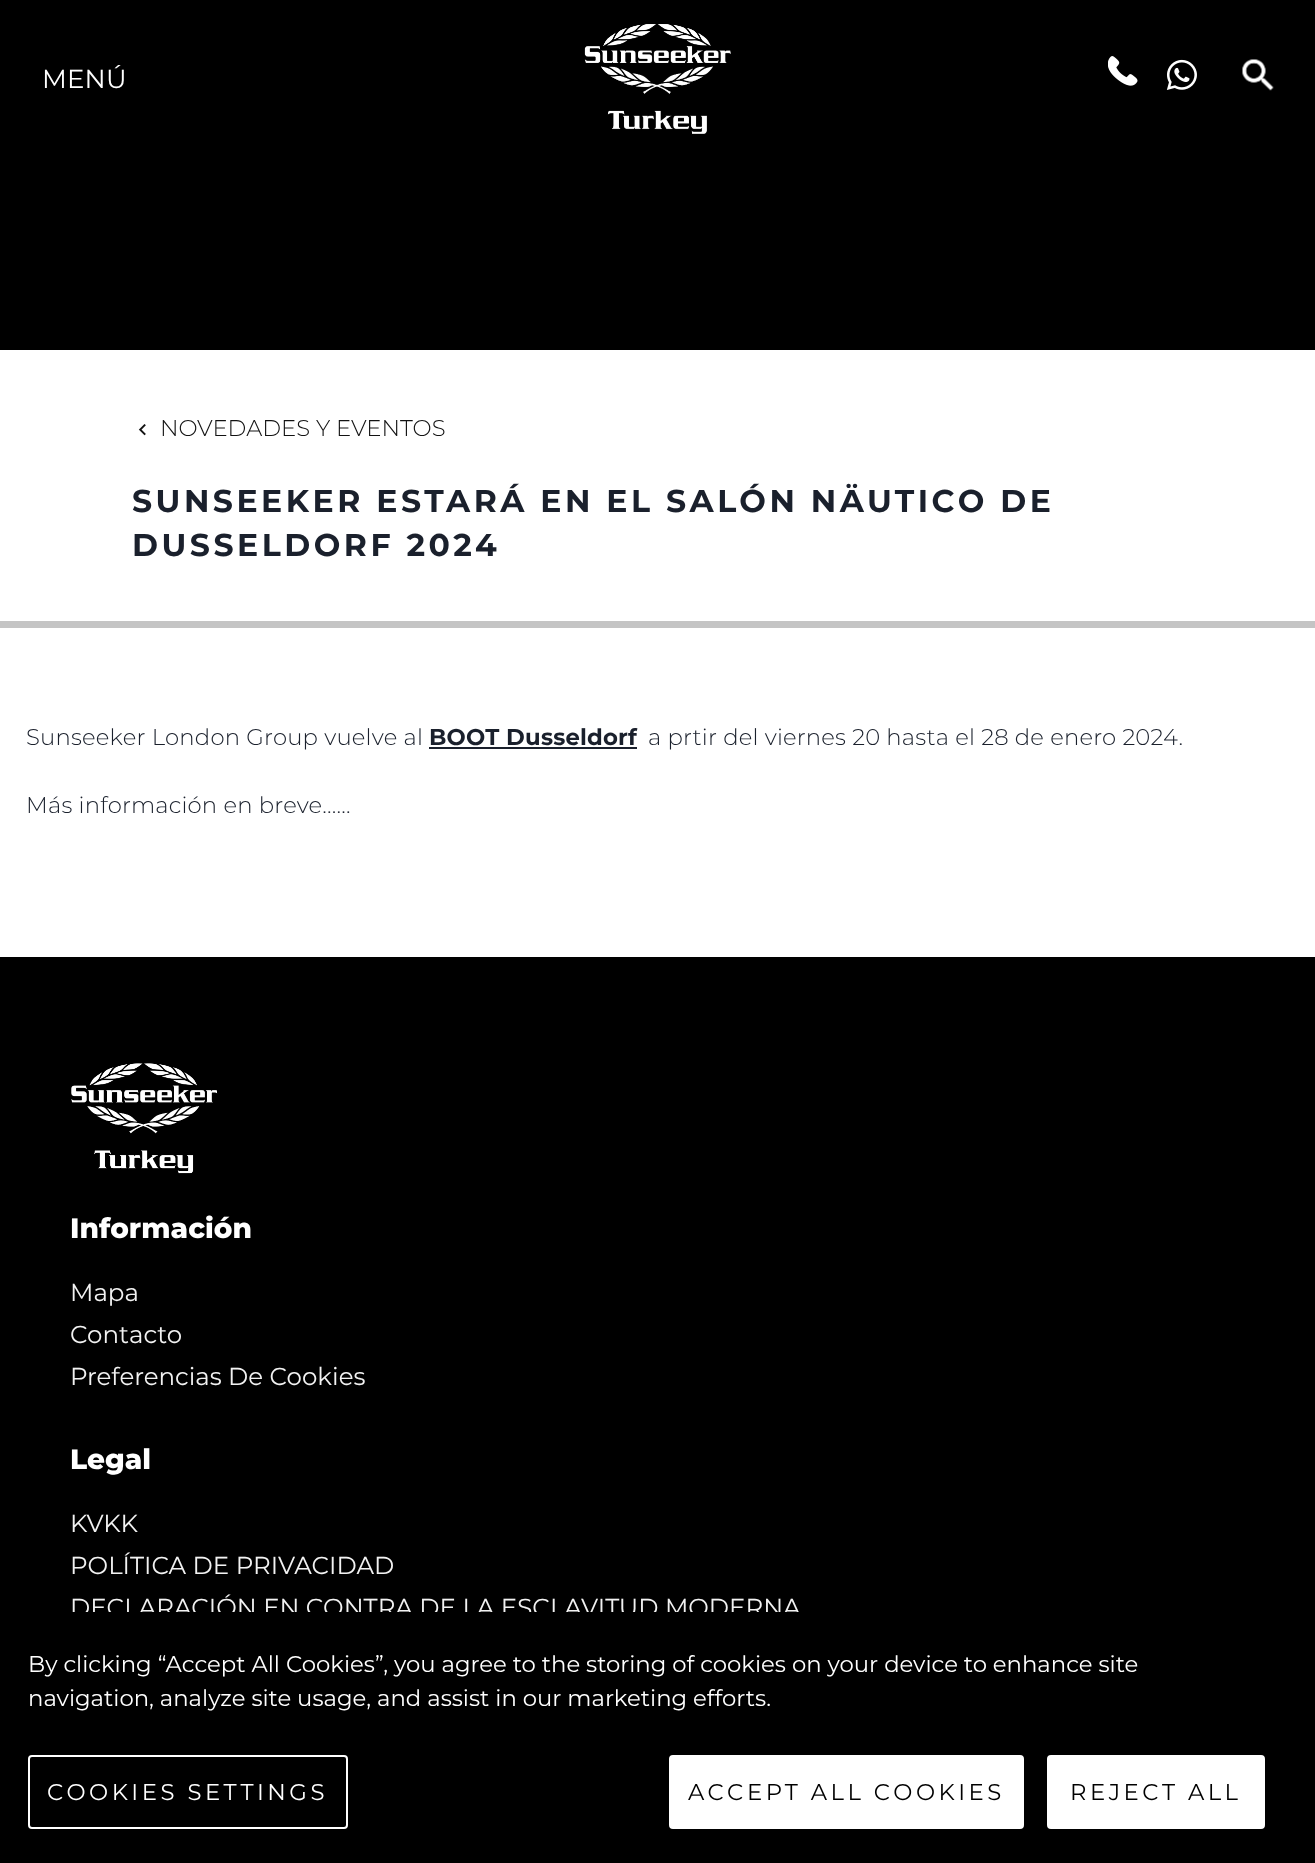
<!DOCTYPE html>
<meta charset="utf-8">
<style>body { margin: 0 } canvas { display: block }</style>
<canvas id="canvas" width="1315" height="1863"></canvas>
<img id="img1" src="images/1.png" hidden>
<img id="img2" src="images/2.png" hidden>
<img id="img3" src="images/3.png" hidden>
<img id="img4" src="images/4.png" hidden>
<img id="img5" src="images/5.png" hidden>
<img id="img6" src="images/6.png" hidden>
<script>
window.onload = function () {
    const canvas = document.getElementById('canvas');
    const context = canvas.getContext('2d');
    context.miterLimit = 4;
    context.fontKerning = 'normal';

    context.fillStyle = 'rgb(255, 255, 255)';
    context.fillRect(0, 0, 1315, 1863);
    context.fillStyle = 'rgb(0, 0, 0)';
    context.fillRect(0, 0, 1315, 350);
    context.drawImage(document.getElementById('img1'), 584, 24, 147, 110);
    context.drawImage(document.getElementById('img2'), 1108, 56, 30, 30);
    context.drawImage(document.getElementById('img3'), 1166, 59, 31, 31);
    context.drawImage(document.getElementById('img4'), 1242, 59, 32, 32);
    context.drawImage(document.getElementById('img5'), 138, 424, 8, 12);
    context.fillStyle = 'rgb(196, 196, 196)';
    context.fillRect(0, 621, 1315, 7);
    context.fillStyle = 'rgb(26, 32, 44)';
    context.fillRect(429, 747, 208, 2);
    context.fillStyle = 'rgb(0, 0, 0)';
    context.fillRect(0, 957, 1315, 655);
    context.drawImage(document.getElementById('img6'), 71, 1063, 147, 111);
    context.fillStyle = 'rgba(0, 0, 0, 0.2)';
    context.filter = 'blur(16px)';
    context.beginPath();
    context.rect(0, 1612, 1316, 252);
    context.fill();
    context.filter = 'none';
    context.letterSpacing = '0.2px';
    context.font = '100 26px "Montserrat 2"';
    context.fillStyle = 'rgb(255, 255, 255)';
    context.fillText('MENÚ', 42, 88);
    context.letterSpacing = '0px';
    context.font = '100 22.75px "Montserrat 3"';
    context.fillStyle = 'rgb(18, 18, 18)';
    context.fillText('NOVEDADES Y EVENTOS', 160, 436);
    context.letterSpacing = '3.5px';
    context.font = '100 31.5px "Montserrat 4"';
    context.fillStyle = 'rgb(26, 32, 44)';
    context.fillText('SUNSEEKER ESTARÁ EN EL SALÓN NÄUTICO DE', 132, 512);
    context.fillText('DUSSELDORF 2024', 132, 556);
    context.letterSpacing = '0.2px';
    context.font = '100 22.75px "Montserrat 3"';
    context.fillText('Sunseeker London Group vuelve al', 26, 745);
    context.font = '100 22.75px "Montserrat 4"';
    context.fillText('BOOT Dusseldorf', 429, 745);
    context.font = '100 22.75px "Montserrat 3"';
    context.fillText('a prtir del viernes 20 hasta el 28 de enero 2024.', 648, 745);
    context.fillText('Más información en breve......', 26, 813);
    context.letterSpacing = '0px';
    context.font = '100 28px Montserrat';
    context.fillStyle = 'rgb(255, 255, 255)';
    context.fillText('Información', 70, 1238);
    context.font = '100 24.5px "Montserrat 2"';
    context.fillStyle = 'rgb(242, 242, 242)';
    context.fillText('Mapa', 70, 1301);
    context.fillText('Contacto', 70, 1343);
    context.fillText('Preferencias De Cookies', 70, 1385);
    context.font = '100 28px Montserrat';
    context.fillStyle = 'rgb(255, 255, 255)';
    context.fillText('Legal', 70, 1469);
    context.font = '100 24.5px "Montserrat 2"';
    context.fillStyle = 'rgb(242, 242, 242)';
    context.fillText('KVKK', 70, 1532);
    context.fillText('POLÍTICA DE PRIVACIDAD', 70, 1574);
    context.fillText('DECLARACIÓN EN CONTRA DE LA ESCLAVITUD MODERNA', 70, 1616);
    context.fillStyle = 'rgb(0, 0, 0)';
    context.fillRect(0, 1612, 1315, 251);
    context.font = '100 22.75px "Montserrat 2"';
    context.fillStyle = 'rgb(255, 255, 255)';
    context.fillText('By clicking “Accept All Cookies”, you agree to the storing of cookies on your device to enhance site', 28, 1672);
    context.fillText('navigation, analyze site usage, and assist in our marketing efforts.', 28, 1706);
    context.beginPath();
    context.roundRect(29, 1756, 318, 72, 3);
    context.strokeStyle = 'rgb(255, 255, 255)';
    context.lineWidth = 2;
    context.stroke();
    context.letterSpacing = '3.5px';
    context.fillText('COOKIES SETTINGS', 47, 1800);
    context.beginPath();
    context.roundRect(670, 1756, 353, 72, 3);
    context.fill();
    context.stroke();
    context.fillStyle = 'rgb(0, 0, 0)';
    context.fillText('ACCEPT ALL COOKIES', 688, 1800);
    context.fillStyle = 'rgb(255, 255, 255)';
    context.beginPath();
    context.roundRect(1048, 1756, 216, 72, 3);
    context.fill();
    context.stroke();
    context.fillStyle = 'rgb(0, 0, 0)';
    context.fillText('REJECT ALL', 1070, 1800);
};
</script>
